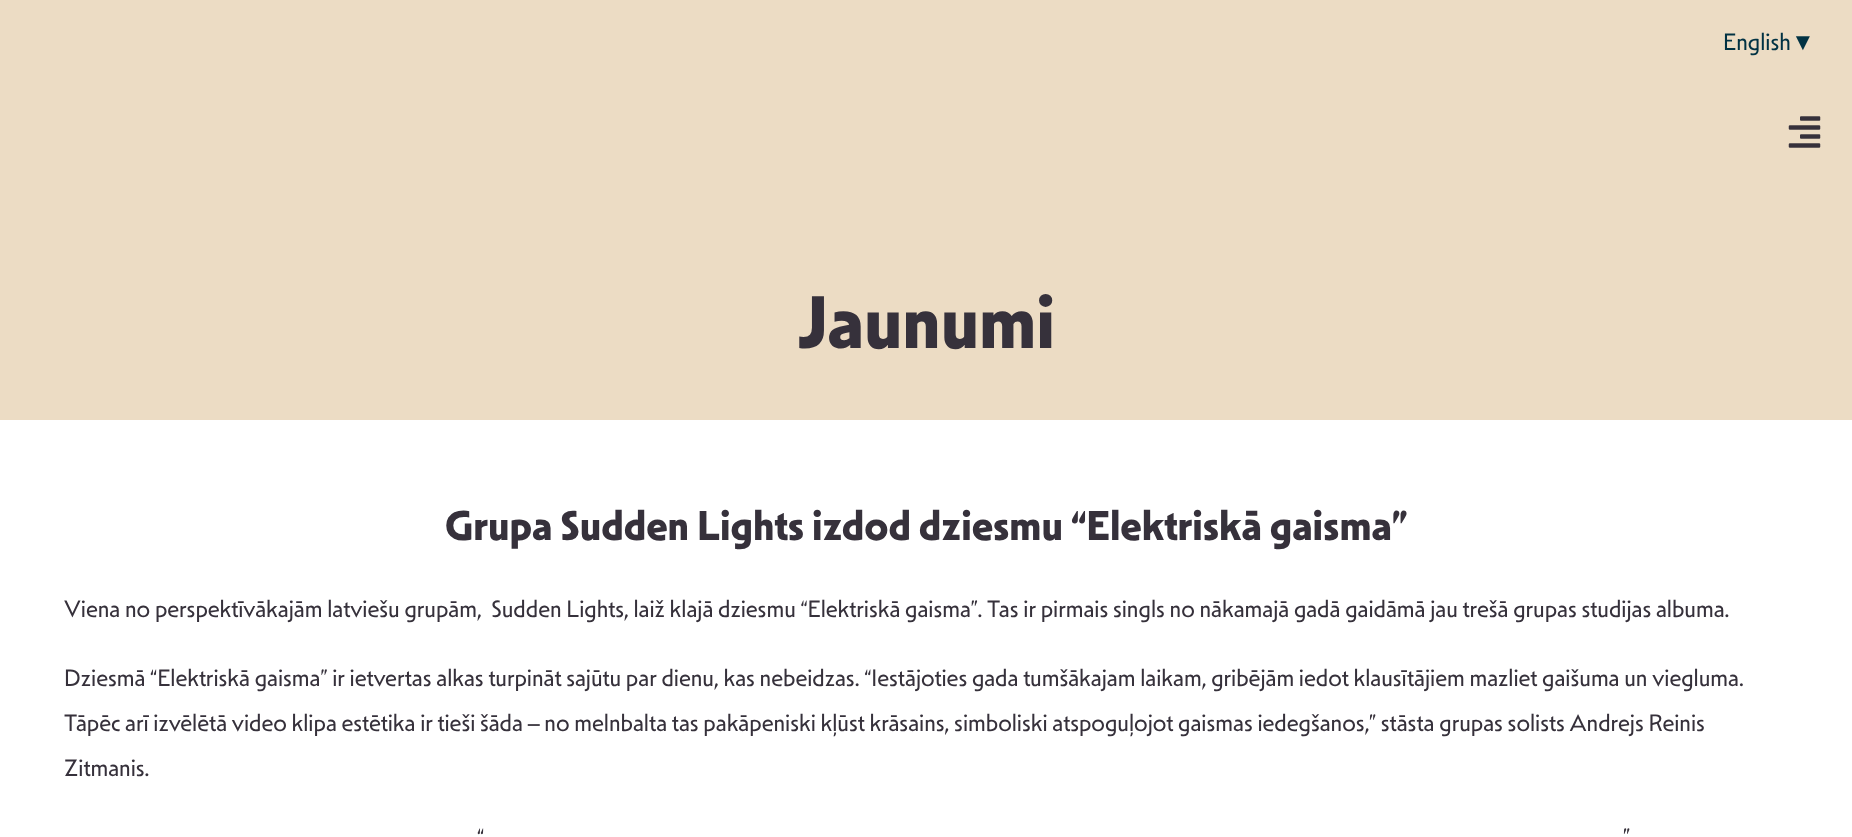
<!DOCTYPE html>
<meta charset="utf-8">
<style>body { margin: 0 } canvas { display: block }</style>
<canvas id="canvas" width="1852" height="837"></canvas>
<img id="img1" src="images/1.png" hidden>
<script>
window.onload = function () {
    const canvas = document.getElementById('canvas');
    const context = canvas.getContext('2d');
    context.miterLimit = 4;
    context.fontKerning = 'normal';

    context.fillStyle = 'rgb(255, 255, 255)';
    context.fillRect(0, 0, 1852, 837);
    context.fillStyle = 'rgb(236, 220, 196)';
    context.fillRect(0, 0, 1852, 420);
    context.drawImage(document.getElementById('img1'), 1788, 116, 33, 32);
    context.font = '24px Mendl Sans';
    context.fillStyle = 'rgb(1, 50, 67)';
    context.fillText('English', 1723, 50);
    context.font = '24px Liberation Sans';
    context.fillText('▼', 1791, 50);
    context.font = 'bold 75px Mendl Sans';
    context.fillStyle = 'rgb(54, 49, 59)';
    context.fillText('Jaunumi', 798, 348);
    context.font = 'bold 42px Mendl Sans';
    context.fillText('Grupa Sudden Lights izdod dziesmu “Elektriskā gaisma”', 444, 540);
    context.font = '24px Mendl Sans';
    context.fillText('Viena no perspektīvākajām latviešu grupām,  Sudden Lights, laiž klajā dziesmu “Elektriskā gaisma”. Tas ir pirmais singls no nākamajā gadā gaidāmā jau trešā grupas studijas albuma.', 64, 617);
    context.fillText('Dziesmā “Elektriskā gaisma” ir ietvertas alkas turpināt sajūtu par dienu, kas nebeidzas. “Iestājoties gada tumšākajam laikam, gribējām iedot klausītājiem mazliet gaišuma un viegluma.', 64, 686);
    context.fillText('Tāpēc arī izvēlētā video klipa estētika ir tieši šāda – no melnbalta tas pakāpeniski kļūst krāsains, simboliski atspoguļojot gaismas iedegšanos,” stāsta grupas solists Andrejs Reinis', 64, 731);
    context.fillText('Zitmanis.', 64, 776);
    context.fillText('“', 477, 845);
    context.fillText('”', 1623, 845);
};
</script>
